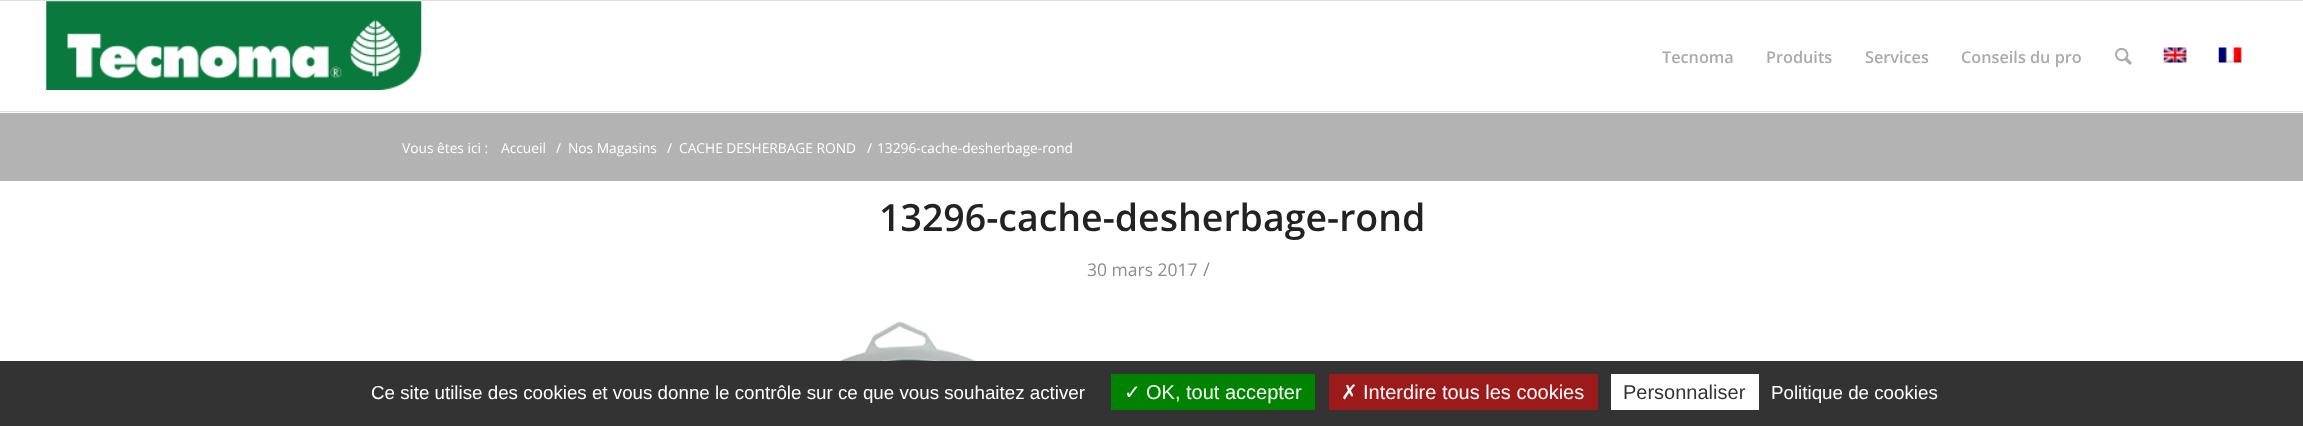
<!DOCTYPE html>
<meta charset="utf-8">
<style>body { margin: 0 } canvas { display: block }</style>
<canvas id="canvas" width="2303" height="426"></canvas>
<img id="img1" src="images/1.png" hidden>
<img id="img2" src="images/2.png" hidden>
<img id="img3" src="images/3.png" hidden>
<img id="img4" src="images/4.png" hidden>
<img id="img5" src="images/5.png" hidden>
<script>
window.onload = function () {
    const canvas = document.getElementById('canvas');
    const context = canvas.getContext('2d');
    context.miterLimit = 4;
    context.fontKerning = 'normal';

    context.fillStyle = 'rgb(255, 255, 255)';
    context.fillRect(0, 0, 2303, 426);
    context.fillStyle = 'rgb(225, 225, 225)';
    context.fillRect(0, 0, 2303, 1);
    context.fillRect(0, 111, 2303, 1);
    context.drawImage(document.getElementById('img1'), 46, 1, 376, 89);
    context.drawImage(document.getElementById('img2'), 2115, 47, 17, 18);
    context.drawImage(document.getElementById('img3'), 2163, 47, 24, 16);
    context.drawImage(document.getElementById('img4'), 2218, 47, 24, 16);
    context.fillStyle = 'rgb(179, 179, 179)';
    context.fillRect(0, 113, 2303, 68);
    context.fillStyle = 'rgb(251, 251, 251)';
    context.fillRect(0, 112, 2303, 1);
    context.drawImage(document.getElementById('img5'), 765, 321, 288, 40);
    context.fillStyle = 'rgb(51, 51, 51)';
    context.fillRect(0, 361, 2303, 65);
    context.fillStyle = 'rgb(0, 131, 0)';
    context.fillRect(1111, 374, 204, 36);
    context.fillStyle = 'rgb(156, 26, 26)';
    context.fillRect(1329, 374, 269, 36);
    context.fillStyle = 'rgb(255, 255, 255)';
    context.fillRect(1611, 374, 148, 36);
    context.font = '600 16.25px Open Sans';
    context.fillStyle = 'rgb(170, 170, 170)';
    context.fillText('Tecnoma', 1662, 63);
    context.fillText('Produits', 1766, 63);
    context.fillText('Services', 1865, 63);
    context.fillText('Conseils du pro', 1961, 63);
    context.font = '13.75px Open Sans';
    context.fillStyle = 'rgb(255, 255, 255)';
    context.fillText('Vous êtes ici :', 402, 153);
    context.fillText('Accueil', 501, 153);
    context.fillText('/', 556, 153);
    context.fillText('Nos Magasins', 568, 153);
    context.fillText('/', 667, 153);
    context.fillText('CACHE DESHERBAGE ROND', 679, 153);
    context.fillText('/', 867, 153);
    context.fillText('13296-cache-desherbage-rond', 877, 153);
    context.font = '600 37.5px Open Sans';
    context.fillStyle = 'rgb(34, 34, 34)';
    context.fillText('13296-cache-desherbage-rond', 879, 231);
    context.font = '17.5px Open Sans';
    context.fillStyle = 'rgb(141, 141, 141)';
    context.fillText('30 mars 2017', 1087, 276);
    context.font = '19px Open Sans';
    context.fillText('/', 1203, 276);
    context.font = '18.75px Liberation Sans';
    context.fillStyle = 'rgb(255, 255, 255)';
    context.fillText('Ce site utilise des cookies et vous donne le contrôle sur ce que vous souhaitez activer', 371, 399);
    context.font = '20px DejaVu Sans';
    context.fillText('✓', 1124, 399);
    context.font = '20px Liberation Sans';
    context.fillText('OK, tout accepter', 1146, 399);
    context.font = '20px DejaVu Sans';
    context.fillText('✗', 1341, 399);
    context.font = '20px Liberation Sans';
    context.fillText('Interdire tous les cookies', 1363, 399);
    context.fillStyle = 'rgb(51, 51, 51)';
    context.fillText('Personnaliser', 1623, 399);
    context.font = '18.75px Liberation Sans';
    context.fillStyle = 'rgb(255, 255, 255)';
    context.fillText('Politique de cookies', 1771, 399);
};
</script>
